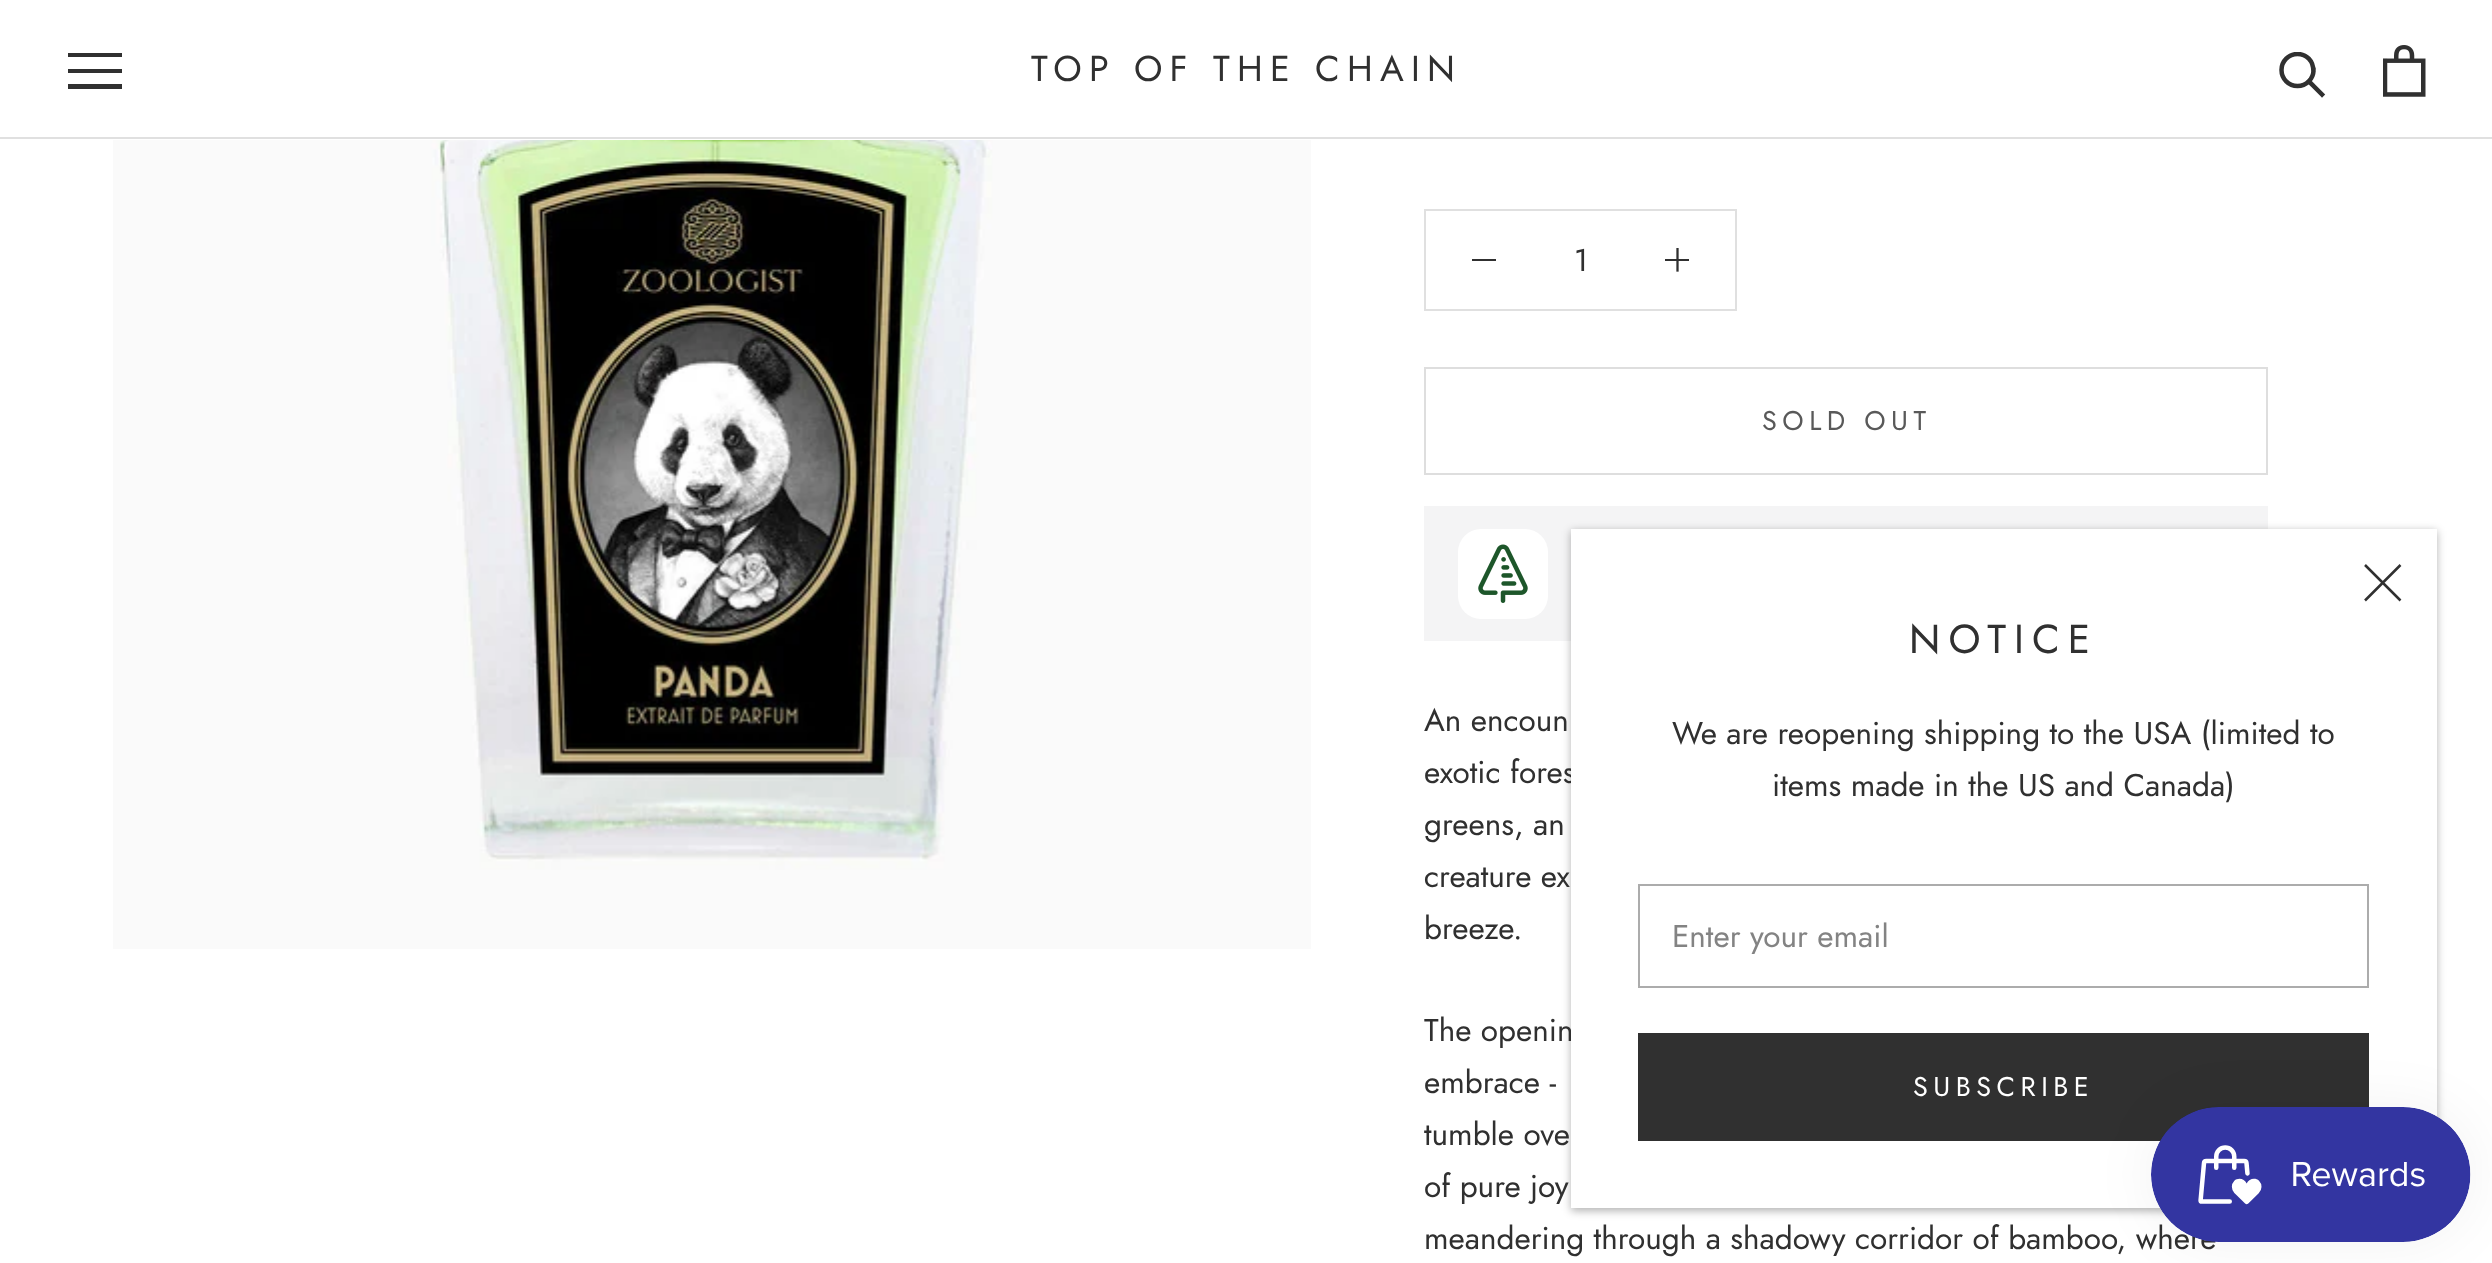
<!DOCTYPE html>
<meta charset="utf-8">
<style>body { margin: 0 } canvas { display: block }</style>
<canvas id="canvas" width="2492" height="1263"></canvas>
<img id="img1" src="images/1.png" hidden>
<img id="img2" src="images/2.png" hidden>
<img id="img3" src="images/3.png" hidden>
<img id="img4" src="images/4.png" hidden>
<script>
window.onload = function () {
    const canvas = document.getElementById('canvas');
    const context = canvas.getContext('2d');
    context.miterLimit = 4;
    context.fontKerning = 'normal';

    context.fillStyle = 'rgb(255, 255, 255)';
    context.fillRect(0, 0, 2492, 1263);
    context.fillStyle = 'rgb(224, 224, 224)';
    context.fillRect(0, 137, 2492, 2);
    context.fillStyle = 'rgb(48, 48, 48)';
    context.beginPath();
    context.moveTo(68, 89);
    context.lineTo(68, 84);
    context.lineTo(122, 84);
    context.lineTo(122, 89);
    context.closePath();
    context.moveTo(68, 69);
    context.lineTo(122, 69);
    context.lineTo(122, 73);
    context.lineTo(68, 73);
    context.closePath();
    context.moveTo(68, 53);
    context.lineTo(122, 53);
    context.lineTo(122, 57);
    context.lineTo(68, 57);
    context.closePath();
    context.fill();
    context.beginPath();
    context.moveTo(2322, 94.5);
    context.lineTo(2309, 81.5);
    context.strokeStyle = 'rgb(48, 48, 48)';
    context.lineWidth = 4.5;
    context.lineCap = 'square';
    context.stroke();
    context.save();
    context.beginPath();
    context.rect(2279, 52, 48, 47);
    context.clip();
    context.beginPath();
    context.arc(2297.5, 70, 16, 0, 2 * Math.PI);
    context.stroke();
    context.restore();
    context.drawImage(document.getElementById('img1'), 2383, 45, 43, 52);
    context.drawImage(document.getElementById('img2'), 113, 140, 1198, 809);
    context.strokeStyle = 'rgb(224, 224, 224)';
    context.lineWidth = 2;
    context.strokeRect(1425, 210, 311, 100);
    context.fillRect(1472, 259, 24, 2);
    context.save();
    context.beginPath();
    context.rect(1665, 248, 25, 24);
    context.clip();
    context.beginPath();
    context.moveTo(1677.5, 249);
    context.lineTo(1677.5, 270.5);
    context.strokeStyle = 'rgb(48, 48, 48)';
    context.lineWidth = 2.3;
    context.stroke();
    context.restore();
    context.fillRect(1665, 259, 24, 2);
    context.strokeStyle = 'rgb(222, 222, 222)';
    context.strokeRect(1425, 368, 842, 106);
    context.fillStyle = 'rgb(244, 244, 245)';
    context.fillRect(1424, 506, 844, 135);
    context.fillStyle = 'rgb(255, 255, 255)';
    context.beginPath();
    context.roundRect(1458, 529, 90, 90, 23);
    context.fill();
    context.drawImage(document.getElementById('img3'), 1478, 544, 50, 59);
    context.fillStyle = 'rgba(0, 0, 0, 0.3)';
    context.filter = 'blur(4.5px)';
    context.beginPath();
    context.rect(1571, 531, 866, 680);
    context.fill();
    context.filter = 'none';
    context.letterSpacing = '7.25px';
    context.font = '36px Jost';
    context.fillStyle = 'rgb(48, 48, 48)';
    context.fillText('TOP OF THE CHAIN', 1031, 81);
    context.letterSpacing = '0px';
    context.font = '31.5px Jost';
    context.fillText('1', 1574, 271);
    context.letterSpacing = '5.5px';
    context.font = '27px Jost';
    context.fillStyle = 'rgb(89, 89, 89)';
    context.fillText('SOLD OUT', 1762, 430);
    context.letterSpacing = '0px';
    context.font = '31.5px Jost';
    context.fillStyle = 'rgb(48, 48, 48)';
    context.fillText('An encoun', 1424, 731);
    context.fillText('exotic fores', 1424, 783);
    context.fillText('greens, an', 1424, 835);
    context.fillText('creature ex', 1424, 887);
    context.fillText('breeze.', 1424, 939);
    context.fillText('The openin', 1424, 1041);
    context.fillText('embrace -', 1424, 1093);
    context.fillText('tumble ove', 1424, 1145);
    context.fillText('of pure joy', 1424, 1197);
    context.fillText('meandering through a shadowy corridor of bamboo, where', 1424, 1249);
    context.fillStyle = 'rgb(255, 255, 255)';
    context.fillRect(1571, 529, 866, 679);
    context.beginPath();
    context.moveTo(2400.5, 565);
    context.lineTo(2365, 600.5);
    context.moveTo(2400.5, 600.5);
    context.lineTo(2365, 565);
    context.strokeStyle = 'rgb(48, 48, 48)';
    context.lineWidth = 2.5;
    context.lineCap = 'butt';
    context.stroke();
    context.letterSpacing = '8px';
    context.font = '40.5px Jost';
    context.fillStyle = 'rgb(48, 48, 48)';
    context.fillText('NOTICE', 1909, 653);
    context.letterSpacing = '0px';
    context.font = '31.5px Jost';
    context.fillText('We are reopening shipping to the USA (limited to', 1672, 744);
    context.fillText('items made in the US and Canada)', 1772, 796);
    context.strokeStyle = 'rgb(172, 172, 172)';
    context.lineWidth = 2;
    context.strokeRect(1639, 885, 729, 102);
    context.fillStyle = 'rgb(131, 131, 131)';
    context.fillText('Enter your email', 1672, 947);
    context.strokeStyle = 'rgb(48, 48, 48)';
    context.strokeRect(1639, 1034, 729, 106);
    context.fillStyle = 'rgb(48, 48, 48)';
    context.fillRect(1640, 1035, 727, 104);
    context.letterSpacing = '5.5px';
    context.font = '27px Jost';
    context.fillStyle = 'rgb(255, 255, 255)';
    context.fillText('SUBSCRIBE', 1913, 1096);
    context.fillStyle = 'rgba(0, 0, 0, 0.05)';
    context.filter = 'blur(28px)';
    context.beginPath();
    context.roundRect(2151, 1107, 320, 135, 67.5);
    context.fill();
    context.filter = 'none';
    context.drawImage(document.getElementById('img4'), 2151, 1107, 320, 135);
};
</script>
